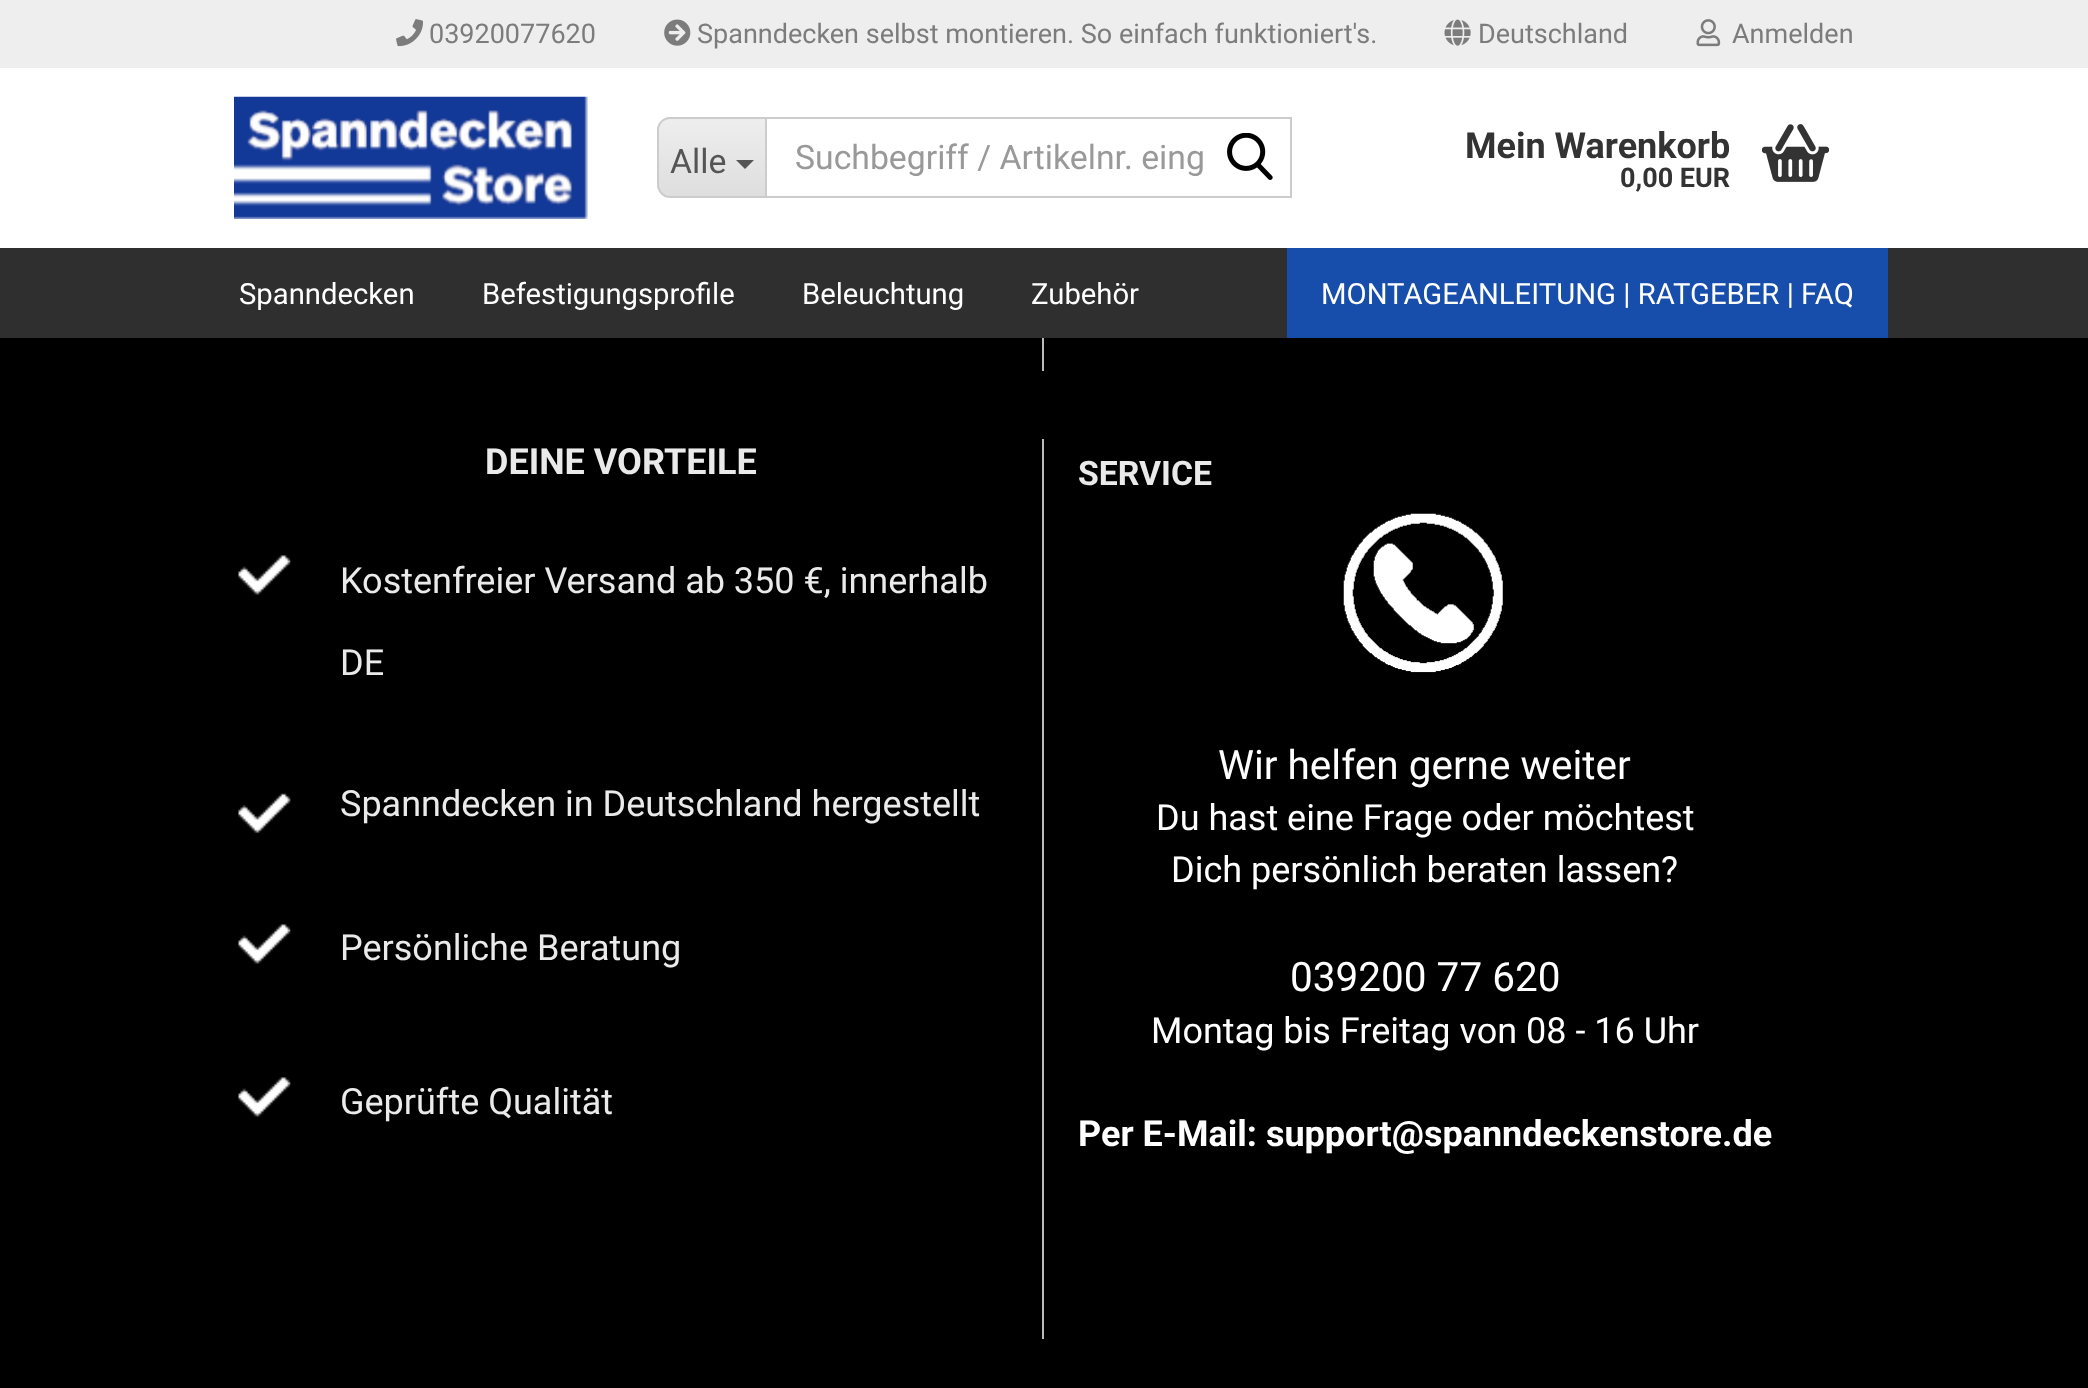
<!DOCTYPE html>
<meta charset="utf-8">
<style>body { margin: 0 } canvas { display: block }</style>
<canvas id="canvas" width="2088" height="1388"></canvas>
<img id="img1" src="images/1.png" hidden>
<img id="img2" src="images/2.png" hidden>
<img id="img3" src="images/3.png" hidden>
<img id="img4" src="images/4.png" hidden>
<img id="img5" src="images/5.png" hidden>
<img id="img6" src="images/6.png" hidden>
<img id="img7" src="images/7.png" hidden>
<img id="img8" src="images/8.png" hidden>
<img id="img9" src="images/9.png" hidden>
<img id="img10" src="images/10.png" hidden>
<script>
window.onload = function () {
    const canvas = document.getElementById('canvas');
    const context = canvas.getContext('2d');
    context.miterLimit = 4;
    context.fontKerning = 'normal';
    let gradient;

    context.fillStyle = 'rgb(0, 0, 0)';
    context.fillRect(0, 0, 2088, 1388);
    context.fillStyle = 'rgb(255, 255, 255)';
    context.fillRect(0, 68, 2088, 180);
    context.fillStyle = 'rgb(238, 238, 238)';
    context.fillRect(0, 0, 2088, 68);
    context.drawImage(document.getElementById('img1'), 396, 19, 27, 28);
    context.drawImage(document.getElementById('img2'), 664, 19, 27, 27);
    context.drawImage(document.getElementById('img3'), 1444, 19, 27, 27);
    context.drawImage(document.getElementById('img4'), 1696, 19, 25, 28);
    context.drawImage(document.getElementById('img5'), 234, 96, 354, 123);
    context.save();
    context.beginPath();
    context.roundRect(657, 117, 108, 81, [14, 0, 0, 14]);
    context.clip();
    gradient = context.createLinearGradient(712, 119, 712, 196);
    gradient.addColorStop(0, 'rgb(238, 238, 238)');
    gradient.addColorStop(1, 'rgb(222, 222, 222)');
    context.fillStyle = gradient;
    context.fillRect(657, 119, 108, 77);
    context.restore();
    context.fillStyle = 'rgb(204, 204, 204)';
    context.beginPath();
    context.moveTo(670, 117);
    context.lineTo(765, 117);
    context.lineTo(765, 198);
    context.lineTo(670, 198);
    context.bezierCurveTo(663, 198, 657, 192, 657, 184);
    context.lineTo(657, 130);
    context.bezierCurveTo(657, 123, 663, 117, 670, 117);
    context.closePath();
    context.moveTo(670, 119);
    context.lineTo(765, 119);
    context.lineTo(765, 196);
    context.lineTo(670, 196);
    context.bezierCurveTo(664, 196, 659, 191, 659, 184);
    context.lineTo(659, 130);
    context.bezierCurveTo(659, 124, 664, 119, 670, 119);
    context.closePath();
    context.fill('evenodd');
    context.fillStyle = 'rgb(85, 85, 85)';
    context.beginPath();
    context.moveTo(736, 160);
    context.lineTo(754, 160);
    context.lineTo(745, 169);
    context.closePath();
    context.fill();
    context.strokeStyle = 'rgb(204, 204, 204)';
    context.lineWidth = 2;
    context.strokeRect(766, 118, 525, 79);
    context.drawImage(document.getElementById('img6'), 1227, 133, 46, 47);
    context.drawImage(document.getElementById('img7'), 1762, 124, 67, 58);
    context.fillStyle = 'rgb(47, 47, 47)';
    context.fillRect(0, 248, 2088, 90);
    context.fillStyle = 'rgb(23, 77, 171)';
    context.fillRect(1287, 248, 601, 90);
    context.fillStyle = 'rgb(187, 187, 187)';
    context.fillRect(1042, 338, 2, 33);
    context.fillRect(1042, 439, 2, 900);
    context.drawImage(document.getElementById('img8'), 238, 555, 53, 40);
    context.drawImage(document.getElementById('img9'), 238, 793, 53, 41);
    context.drawImage(document.getElementById('img8'), 238, 924, 53, 40);
    context.drawImage(document.getElementById('img8'), 238, 1077, 53, 40);
    context.drawImage(document.getElementById('img10'), 1343, 513, 160, 160);
    context.font = '27px Roboto';
    context.fillStyle = 'rgb(124, 124, 124)';
    context.fillText('03920077620', 429, 43);
    context.fillText('Spanndecken selbst montieren. So einfach funktioniert\'s.', 697, 43);
    context.fillText('Deutschland', 1478, 43);
    context.fillText('Anmelden', 1732, 43);
    context.font = '33.75px Roboto';
    context.fillStyle = 'rgb(85, 85, 85)';
    context.fillText('Alle', 670, 173);
    context.fillStyle = 'rgb(153, 153, 153)';
    context.fillText('Suchbegriff / Artikelnr. eing', 795, 169);
    context.font = 'bold 36px Roboto';
    context.fillStyle = 'rgb(51, 51, 51)';
    context.fillText('Mein Warenkorb', 1465, 158);
    context.font = 'bold 27px Roboto';
    context.fillText('0,00 EUR', 1620, 187);
    context.font = '29.25px Roboto';
    context.fillStyle = 'rgb(255, 255, 255)';
    context.fillText('Spanndecken', 239, 304);
    context.fillText('Befestigungsprofile', 482, 304);
    context.fillText('Beleuchtung', 802, 304);
    context.fillText('Zubehör', 1031, 304);
    context.fillText('MONTAGEANLEITUNG | RATGEBER | FAQ', 1321, 304);
    context.font = 'bold 36px Roboto';
    context.fillStyle = 'rgb(234, 234, 234)';
    context.fillText('DEINE VORTEILE', 485, 474);
    context.font = '36px Roboto';
    context.fillText('Kostenfreier Versand ab 350 €, innerhalb', 340, 593);
    context.fillText('DE', 340, 675);
    context.fillText('Spanndecken in Deutschland hergestellt', 340, 816);
    context.fillText('Persönliche Beratung', 340, 960);
    context.fillText('Geprüfte Qualität', 340, 1114);
    context.font = 'bold 33.75px Roboto';
    context.fillText('SERVICE', 1078, 485);
    context.font = '40.5px Roboto';
    context.fillStyle = 'rgb(255, 255, 255)';
    context.fillText('Wir helfen gerne weiter', 1218, 779);
    context.font = '36px Roboto';
    context.fillText('Du hast eine Frage oder möchtest', 1156, 830);
    context.fillText('Dich persönlich beraten lassen?', 1171, 882);
    context.font = '40.5px Roboto';
    context.fillText('039200 77 620', 1290, 991);
    context.font = '36px Roboto';
    context.fillText('Montag bis Freitag von 08 - 16 Uhr', 1151, 1043);
    context.font = 'bold 36px Roboto';
    context.fillText('Per E-Mail: support@spanndeckenstore.de', 1078, 1146);
};
</script>
